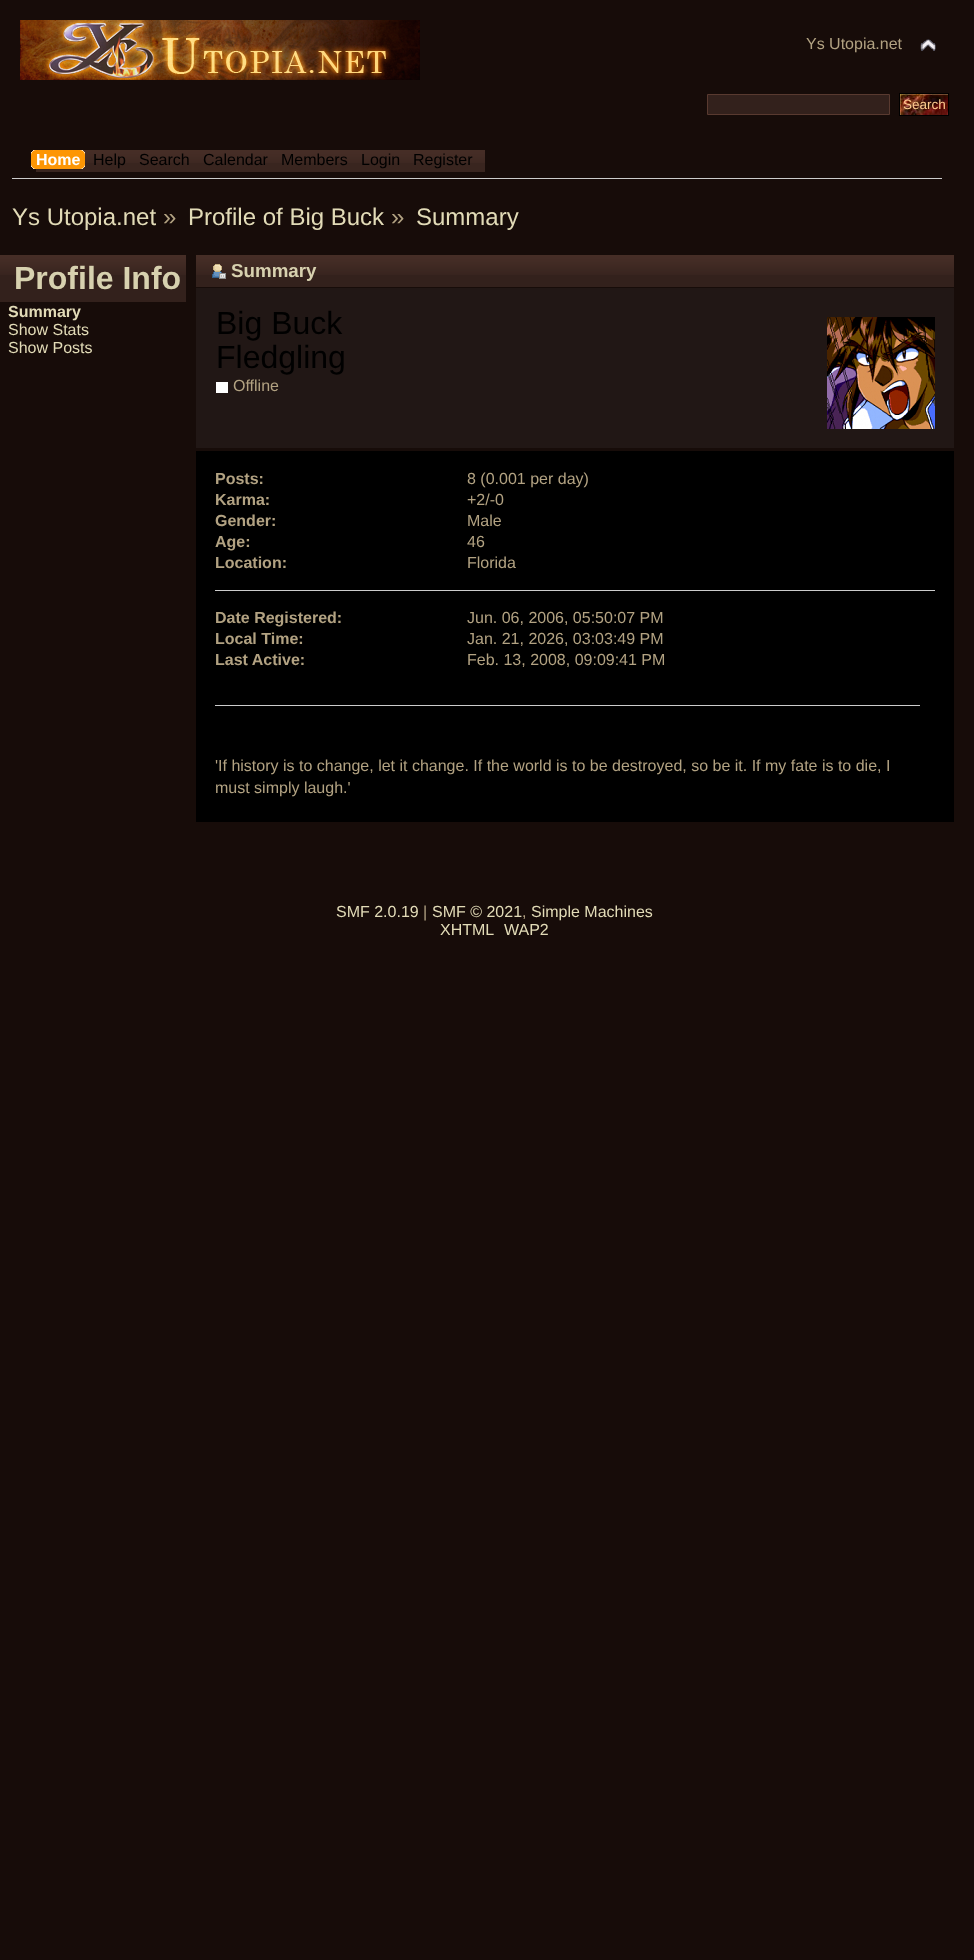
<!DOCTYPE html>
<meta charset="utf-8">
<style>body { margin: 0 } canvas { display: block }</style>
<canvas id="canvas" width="974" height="1960"></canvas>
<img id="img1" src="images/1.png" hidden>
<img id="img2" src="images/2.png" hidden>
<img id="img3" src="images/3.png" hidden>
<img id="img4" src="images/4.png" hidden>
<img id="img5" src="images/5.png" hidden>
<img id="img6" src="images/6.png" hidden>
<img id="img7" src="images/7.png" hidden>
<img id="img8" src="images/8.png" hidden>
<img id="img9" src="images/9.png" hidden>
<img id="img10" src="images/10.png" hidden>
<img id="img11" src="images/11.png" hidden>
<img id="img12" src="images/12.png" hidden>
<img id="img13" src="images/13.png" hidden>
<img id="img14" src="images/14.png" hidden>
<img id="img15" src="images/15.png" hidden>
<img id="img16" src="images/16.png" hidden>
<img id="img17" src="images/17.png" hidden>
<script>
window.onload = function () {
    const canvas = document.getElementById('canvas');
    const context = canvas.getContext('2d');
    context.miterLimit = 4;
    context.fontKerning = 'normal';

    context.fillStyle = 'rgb(23, 12, 9)';
    context.fillRect(0, 0, 974, 1960);
    context.drawImage(document.getElementById('img1'), 20, 20, 400, 60);
    context.drawImage(document.getElementById('img2'), 920, 39, 16, 12);
    context.fillStyle = 'rgb(51, 33, 28)';
    context.beginPath();
    context.rect(707.5, 94.5, 182, 20);
    context.fill();
    context.strokeStyle = 'rgb(89, 58, 48)';
    context.stroke();
    context.drawImage(document.getElementById('img3'), 900, 94, 48, 21);
    context.strokeStyle = 'rgb(0, 0, 0)';
    context.strokeRect(899.5, 93.5, 49, 22);
    context.fillStyle = 'rgb(57, 37, 31)';
    context.fillRect(36, 163, 449, 9);
    context.drawImage(document.getElementById('img4'), 83, 150, 10, 13);
    context.drawImage(document.getElementById('img5'), 36, 150, 49, 19);
    context.drawImage(document.getElementById('img6'), 31, 150, 5, 19);
    context.drawImage(document.getElementById('img7'), 93, 150, 46, 13);
    context.drawImage(document.getElementById('img8'), 139, 150, 64, 13);
    context.drawImage(document.getElementById('img9'), 203, 150, 78, 13);
    context.drawImage(document.getElementById('img10'), 281, 150, 80, 13);
    context.drawImage(document.getElementById('img11'), 361, 150, 52, 13);
    context.drawImage(document.getElementById('img12'), 413, 150, 72, 13);
    context.fillStyle = 'rgb(204, 204, 204)';
    context.fillRect(12, 178, 930, 1);
    context.fillStyle = 'rgb(51, 33, 28)';
    context.fillRect(0, 275, 186, 27);
    context.drawImage(document.getElementById('img13'), 0, 255, 9, 20);
    context.drawImage(document.getElementById('img14'), 9, 255, 177, 20);
    context.fillRect(196, 275, 758, 12);
    context.drawImage(document.getElementById('img13'), 196, 255, 9, 20);
    context.drawImage(document.getElementById('img15'), 205, 255, 749, 20);
    context.drawImage(document.getElementById('img16'), 212, 264, 14, 15);
    context.fillStyle = 'rgb(33, 23, 21)';
    context.fillRect(196, 288, 758, 160);
    context.drawImage(document.getElementById('img17'), 827, 317, 108, 112);
    context.fillStyle = 'rgb(255, 255, 255)';
    context.fillRect(216, 382, 12, 11);
    context.fillStyle = 'rgb(0, 0, 0)';
    context.fillRect(196, 451, 758, 371);
    context.fillStyle = 'rgb(204, 204, 204)';
    context.fillRect(215, 590, 720, 1);
    context.fillRect(215, 705, 705, 1);
    context.font = '16px Liberation Sans';
    context.fillStyle = 'rgb(178, 162, 130)';
    context.fillText('Ys Utopia.net', 806, 49);
    context.font = '13.5px Liberation Sans';
    context.fillStyle = 'rgb(254, 203, 143)';
    context.fillText('Search', 903, 109);
    context.font = 'bold 16px Liberation Sans';
    context.fillStyle = 'rgb(255, 255, 255)';
    context.fillText('Home', 36, 165);
    context.font = '16px Liberation Sans';
    context.fillStyle = 'rgb(0, 0, 0)';
    context.fillText('Help', 93, 165);
    context.fillText('Search', 139, 165);
    context.fillText('Calendar', 203, 165);
    context.fillText('Members', 281, 165);
    context.fillText('Login', 361, 165);
    context.fillText('Register', 413, 165);
    context.font = '24px Liberation Sans';
    context.fillStyle = 'rgb(226, 219, 183)';
    context.fillText('Ys Utopia.net', 12, 225);
    context.fillStyle = 'rgb(178, 162, 130)';
    context.fillText('»', 163, 225);
    context.fillStyle = 'rgb(226, 219, 183)';
    context.fillText('Profile of Big Buck', 188, 225);
    context.fillStyle = 'rgb(178, 162, 130)';
    context.fillText('»', 391, 225);
    context.fillStyle = 'rgb(226, 219, 183)';
    context.fillText('Summary', 416, 225);
    context.font = 'bold 32px Liberation Sans';
    context.fillStyle = 'rgb(215, 209, 175)';
    context.fillText('Profile Info', 14, 289);
    context.font = 'bold 16px Liberation Sans';
    context.fillStyle = 'rgb(226, 219, 183)';
    context.fillText('Summary', 8, 317);
    context.font = '16px Liberation Sans';
    context.fillText('Show Stats', 8, 335);
    context.fillText('Show Posts', 8, 353);
    context.font = 'bold 18.75px Liberation Sans';
    context.fillStyle = 'rgb(215, 209, 175)';
    context.fillText('Summary', 231, 277);
    context.font = '32px Liberation Sans';
    context.fillStyle = 'rgb(0, 0, 0)';
    context.fillText('Big Buck', 216, 334);
    context.fillText('Fledgling', 216, 368);
    context.font = '16px Liberation Sans';
    context.fillStyle = 'rgb(178, 162, 130)';
    context.fillText('Offline', 233, 391);
    context.font = 'bold 16px Liberation Sans';
    context.fillText('Posts:', 215, 484);
    context.font = '16px Liberation Sans';
    context.fillText('8 (0.001 per day)', 467, 484);
    context.font = 'bold 16px Liberation Sans';
    context.fillText('Karma:', 215, 505);
    context.font = '16px Liberation Sans';
    context.fillText('+2/-0', 467, 505);
    context.font = 'bold 16px Liberation Sans';
    context.fillText('Gender:', 215, 526);
    context.font = '16px Liberation Sans';
    context.fillText('Male', 467, 526);
    context.font = 'bold 16px Liberation Sans';
    context.fillText('Age:', 215, 547);
    context.font = '16px Liberation Sans';
    context.fillText('46', 467, 547);
    context.font = 'bold 16px Liberation Sans';
    context.fillText('Location:', 215, 568);
    context.font = '16px Liberation Sans';
    context.fillText('Florida', 467, 568);
    context.font = 'bold 16px Liberation Sans';
    context.fillText('Date Registered:', 215, 623);
    context.font = '16px Liberation Sans';
    context.fillText('Jun. 06, 2006, 05:50:07 PM', 467, 623);
    context.font = 'bold 16px Liberation Sans';
    context.fillText('Local Time:', 215, 644);
    context.font = '16px Liberation Sans';
    context.fillText('Jan. 21, 2026, 03:03:49 PM', 467, 644);
    context.font = 'bold 16px Liberation Sans';
    context.fillText('Last Active:', 215, 665);
    context.font = '16px Liberation Sans';
    context.fillText('Feb. 13, 2008, 09:09:41 PM', 467, 665);
    context.fillText('\'If history is to change, let it change. If the world is to be destroyed, so be it. If my fate is to die, I', 215, 771);
    context.fillText('must simply laugh.\'', 215, 793);
    context.fillStyle = 'rgb(226, 219, 183)';
    context.fillText('SMF 2.0.19', 336, 917);
    context.fillStyle = 'rgb(178, 162, 130)';
    context.fillText('|', 423, 917);
    context.fillStyle = 'rgb(226, 219, 183)';
    context.fillText('SMF © 2021', 432, 917);
    context.fillStyle = 'rgb(178, 162, 130)';
    context.fillText(',', 522, 917);
    context.fillStyle = 'rgb(226, 219, 183)';
    context.fillText('Simple Machines', 531, 917);
    context.fillText('XHTML', 440, 935);
    context.fillText('WAP2', 504, 935);
};
</script>
